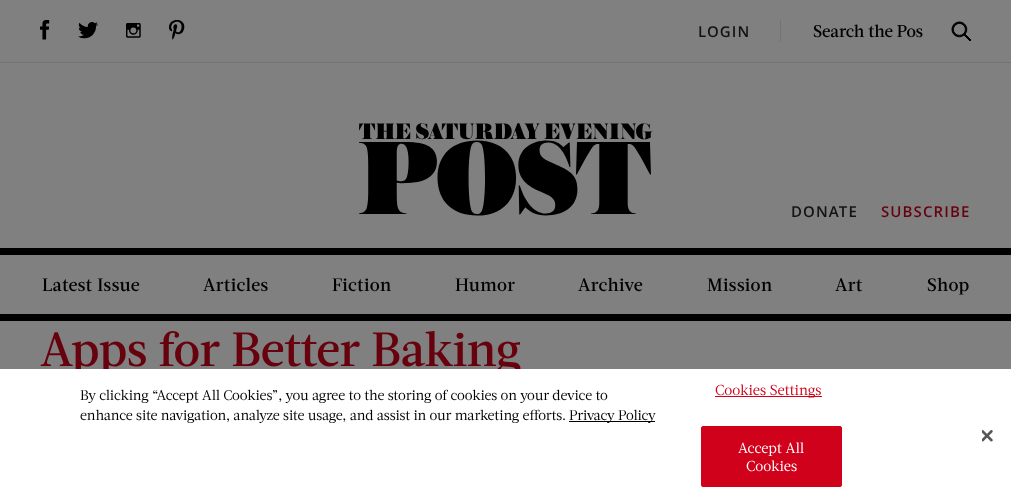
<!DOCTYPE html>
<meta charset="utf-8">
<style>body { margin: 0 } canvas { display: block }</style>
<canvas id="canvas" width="1011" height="503"></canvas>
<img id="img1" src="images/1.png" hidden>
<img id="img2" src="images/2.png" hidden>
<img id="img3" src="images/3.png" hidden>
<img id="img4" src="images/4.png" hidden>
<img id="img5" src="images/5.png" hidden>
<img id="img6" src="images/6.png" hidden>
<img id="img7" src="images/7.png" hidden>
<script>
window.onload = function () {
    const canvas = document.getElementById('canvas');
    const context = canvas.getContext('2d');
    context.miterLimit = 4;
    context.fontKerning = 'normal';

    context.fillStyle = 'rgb(128, 128, 128)';
    context.fillRect(0, 0, 1011, 503);
    context.fillStyle = 'rgb(115, 115, 115)';
    context.fillRect(0, 62, 1011, 1);
    context.drawImage(document.getElementById('img1'), 40, 20, 10, 20);
    context.drawImage(document.getElementById('img2'), 78, 22, 20, 17);
    context.drawImage(document.getElementById('img3'), 126, 23, 15, 15);
    context.drawImage(document.getElementById('img4'), 169, 20, 16, 20);
    context.fillRect(780, 20, 1, 22);
    context.drawImage(document.getElementById('img5'), 951, 21, 20, 20);
    context.drawImage(document.getElementById('img6'), 359, 123, 294, 93);
    context.fillStyle = 'rgb(0, 0, 0)';
    context.fillRect(0, 248, 1011, 7);
    context.fillRect(0, 314, 1011, 7);
    context.letterSpacing = '1.1px';
    context.font = '600 15px Open Sans';
    context.fillStyle = 'rgb(19, 19, 19)';
    context.fillText('LOGIN', 698, 37);
    context.letterSpacing = '0px';
    context.font = '500 17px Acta';
    context.fillStyle = 'rgb(0, 0, 0)';
    context.fillText('Search the Pos', 813, 37);
    context.letterSpacing = '1.1px';
    context.font = '600 15px Open Sans';
    context.fillStyle = 'rgb(19, 19, 19)';
    context.fillText('DONATE', 791, 217);
    context.fillStyle = 'rgb(104, 1, 14)';
    context.fillText('SUBSCRIBE', 881, 217);
    context.letterSpacing = '0.5px';
    context.font = '500 18px Acta';
    context.fillStyle = 'rgb(0, 0, 0)';
    context.fillText('Latest Issue', 42, 291);
    context.fillText('Articles', 203, 291);
    context.fillText('Fiction', 332, 291);
    context.fillText('Humor', 455, 291);
    context.fillText('Archive', 578, 291);
    context.fillText('Mission', 707, 291);
    context.fillText('Art', 835, 291);
    context.fillText('Shop', 927, 291);
    context.letterSpacing = '0px';
    context.font = '500 48px Acta';
    context.fillStyle = 'rgb(104, 1, 14)';
    context.fillText('Apps for Better Baking', 40, 366);
    context.fillStyle = 'rgb(255, 255, 255)';
    context.fillRect(0, 369, 1011, 134);
    context.font = '14.1px Acta';
    context.fillStyle = 'rgb(0, 0, 0)';
    context.fillText('By clicking “Accept All Cookies”, you agree to the storing of cookies on your device to', 80, 400);
    context.fillText('enhance site navigation, analyze site usage, and assist in our marketing efforts.', 80, 420);
    context.fillRect(569, 421, 86, 1);
    context.fillText('Privacy Policy', 569, 420);
    context.fillStyle = 'rgb(208, 2, 27)';
    context.fillRect(715, 396, 107, 1);
    context.letterSpacing = '0.1px';
    context.font = '14.5px Acta';
    context.fillText('Cookies Settings', 715, 395);
    context.beginPath();
    context.roundRect(701.5, 426.5, 140, 60, 1.5);
    context.fill();
    context.strokeStyle = 'rgb(208, 2, 27)';
    context.stroke();
    context.fillStyle = 'rgb(255, 255, 255)';
    context.fillText('Accept All', 738, 453);
    context.fillText('Cookies', 746, 471);
    context.drawImage(document.getElementById('img7'), 982, 430, 11, 12);
};
</script>
